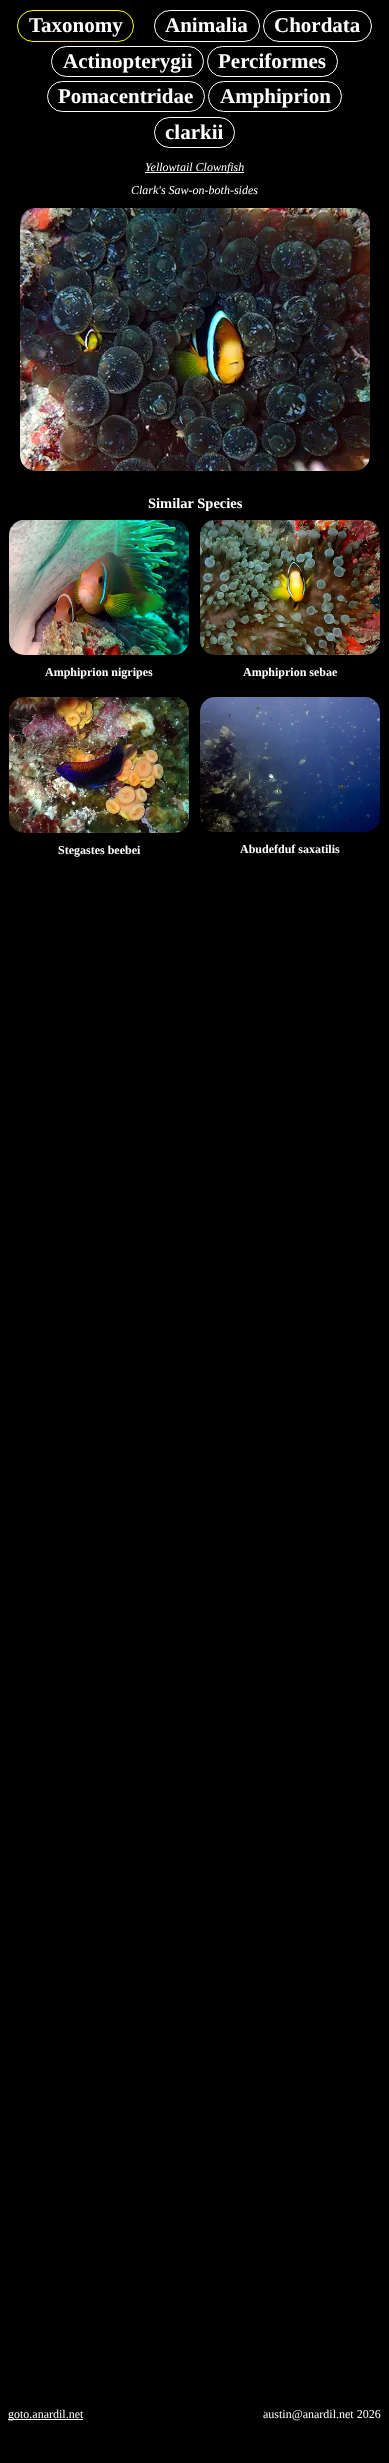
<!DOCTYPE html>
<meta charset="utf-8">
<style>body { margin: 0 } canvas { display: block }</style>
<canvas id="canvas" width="389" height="2463"></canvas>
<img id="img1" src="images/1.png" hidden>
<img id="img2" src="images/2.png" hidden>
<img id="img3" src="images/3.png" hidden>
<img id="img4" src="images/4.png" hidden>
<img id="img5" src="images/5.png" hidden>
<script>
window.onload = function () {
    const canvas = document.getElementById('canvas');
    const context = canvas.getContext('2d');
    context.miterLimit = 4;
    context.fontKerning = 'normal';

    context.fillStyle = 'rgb(0, 0, 0)';
    context.fillRect(0, 0, 389, 2463);
    context.beginPath();
    context.roundRect(17.5, 10.5, 116, 31, 15.5);
    context.strokeStyle = 'rgb(255, 255, 0)';
    context.stroke();
    context.beginPath();
    context.roundRect(154.5, 10.5, 105, 31, 15.5);
    context.strokeStyle = 'rgb(255, 255, 255)';
    context.stroke();
    context.beginPath();
    context.roundRect(263.5, 10.5, 108, 31, 15.5);
    context.stroke();
    context.beginPath();
    context.roundRect(51.5, 46.5, 152, 30, 15);
    context.stroke();
    context.beginPath();
    context.roundRect(207.5, 46.5, 130, 30, 15);
    context.stroke();
    context.beginPath();
    context.roundRect(47.5, 81.5, 157, 30, 15);
    context.stroke();
    context.beginPath();
    context.roundRect(208.5, 81.5, 133, 30, 15);
    context.stroke();
    context.beginPath();
    context.roundRect(154.5, 117.5, 80, 30, 15);
    context.stroke();
    context.fillStyle = 'rgb(255, 255, 255)';
    context.fillRect(145, 172, 99, 1);
    context.drawImage(document.getElementById('img1'), 20, 208, 350, 263);
    context.drawImage(document.getElementById('img2'), 9, 520, 180, 135);
    context.drawImage(document.getElementById('img3'), 200, 520, 180, 135);
    context.drawImage(document.getElementById('img4'), 9, 697, 180, 136);
    context.drawImage(document.getElementById('img5'), 200, 697, 180, 135);
    context.fillRect(8, 2419, 75, 1);
    context.font = 'bold 21px Liberation Serif';
    context.fillText('Taxonomy', 29, 32);
    context.fillText('Animalia', 165, 32);
    context.fillText('Chordata', 274, 32);
    context.fillText('Actinopterygii', 63, 68);
    context.fillText('Perciformes', 218, 68);
    context.fillText('Pomacentridae', 58, 103);
    context.fillText('Amphiprion', 220, 103);
    context.fillText('clarkii', 165, 139);
    context.font = 'italic 12px Liberation Serif';
    context.fillText('Yellowtail Clownfish', 145, 171);
    context.fillText('Clark\'s Saw-on-both-sides', 131, 194);
    context.font = 'bold 14.5px Liberation Serif';
    context.fillText('Similar Species', 148, 508);
    context.font = 'bold 12px Liberation Serif';
    context.fillText('Amphiprion nigripes', 45, 676);
    context.fillText('Amphiprion sebae', 243, 676);
    context.fillText('Stegastes beebei', 58, 854);
    context.fillText('Abudefduf saxatilis', 240, 853);
    context.font = '12px Liberation Serif';
    context.fillText('goto.anardil.net', 8, 2418);
    context.fillText('austin@anardil.net 2026', 263, 2418);
};
</script>
